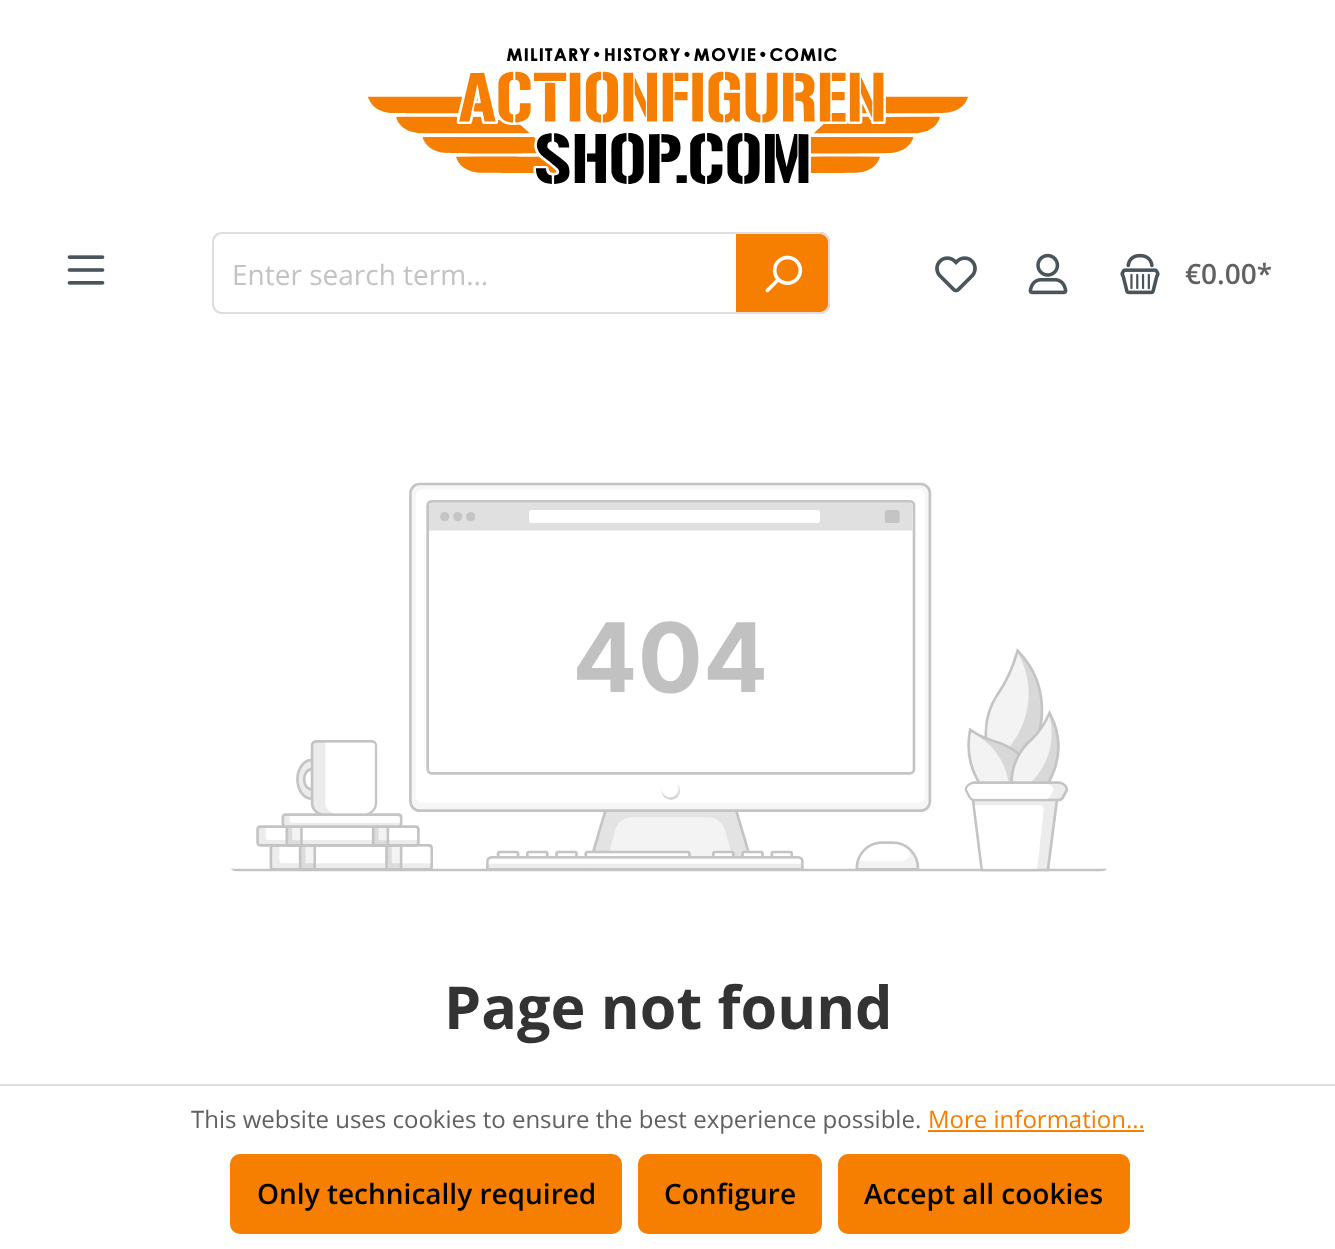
<!DOCTYPE html>
<meta charset="utf-8">
<style>body { margin: 0 } canvas { display: block }</style>
<canvas id="canvas" width="1335" height="1249"></canvas>
<img id="img1" src="images/1.png" hidden>
<img id="img2" src="images/2.png" hidden>
<img id="img3" src="images/3.png" hidden>
<img id="img4" src="images/4.png" hidden>
<img id="img5" src="images/5.png" hidden>
<img id="img6" src="images/6.png" hidden>
<img id="img7" src="images/7.png" hidden>
<script>
window.onload = function () {
    const canvas = document.getElementById('canvas');
    const context = canvas.getContext('2d');
    context.miterLimit = 4;
    context.fontKerning = 'normal';

    context.fillStyle = 'rgb(255, 255, 255)';
    context.fillRect(0, 0, 1335, 1249);
    context.drawImage(document.getElementById('img1'), 368, 48, 600, 136);
    context.drawImage(document.getElementById('img2'), 67, 255, 38, 30);
    context.fillStyle = 'rgb(222, 222, 222)';
    context.beginPath();
    context.moveTo(222, 232);
    context.lineTo(738, 232);
    context.lineTo(738, 314);
    context.lineTo(222, 314);
    context.bezierCurveTo(216, 314, 212, 310, 212, 304);
    context.lineTo(212, 242);
    context.bezierCurveTo(212, 236, 216, 232, 222, 232);
    context.closePath();
    context.moveTo(222, 234);
    context.lineTo(738, 234);
    context.lineTo(738, 312);
    context.lineTo(222, 312);
    context.bezierCurveTo(218, 312, 214, 308, 214, 304);
    context.lineTo(214, 242);
    context.bezierCurveTo(214, 238, 218, 234, 222, 234);
    context.closePath();
    context.fill('evenodd');
    context.fillStyle = 'rgb(246, 126, 0)';
    context.beginPath();
    context.roundRect(736, 232, 94, 82, [0, 10, 10, 0]);
    context.fill();
    context.fillStyle = 'rgb(222, 222, 222)';
    context.beginPath();
    context.moveTo(736, 232);
    context.lineTo(820, 232);
    context.bezierCurveTo(826, 232, 830, 236, 830, 242);
    context.lineTo(830, 304);
    context.bezierCurveTo(830, 310, 826, 314, 820, 314);
    context.lineTo(736, 314);
    context.closePath();
    context.moveTo(736, 234);
    context.lineTo(820, 234);
    context.bezierCurveTo(824, 234, 828, 238, 828, 242);
    context.lineTo(828, 304);
    context.bezierCurveTo(828, 308, 824, 312, 820, 312);
    context.lineTo(736, 312);
    context.closePath();
    context.fill('evenodd');
    context.drawImage(document.getElementById('img3'), 765, 255, 38, 38);
    context.drawImage(document.getElementById('img4'), 935, 256, 42, 37);
    context.drawImage(document.getElementById('img5'), 1028, 253, 40, 42);
    context.drawImage(document.getElementById('img6'), 1120, 253, 40, 42);
    context.drawImage(document.getElementById('img7'), 230, 482, 878, 390);
    context.fillRect(0, 1084, 1335, 2);
    context.fillStyle = 'rgb(246, 126, 0)';
    context.fillRect(928, 1130, 216, 2);
    context.beginPath();
    context.roundRect(231, 1155, 390, 78, 9);
    context.fill();
    context.strokeStyle = 'rgb(246, 126, 0)';
    context.lineWidth = 2;
    context.stroke();
    context.beginPath();
    context.roundRect(639, 1155, 182, 78, 9);
    context.fill();
    context.stroke();
    context.beginPath();
    context.roundRect(839, 1155, 290, 78, 9);
    context.fill();
    context.stroke();
    context.font = '28px Open Sans';
    context.fillStyle = 'rgb(195, 195, 195)';
    context.fillText('Enter search term...', 232, 285);
    context.font = '600 28px Open Sans';
    context.fillStyle = 'rgb(97, 97, 97)';
    context.fillText('€0.00*', 1185, 284);
    context.font = 'bold 59.25px Open Sans';
    context.fillStyle = 'rgb(51, 51, 51)';
    context.fillText('Page not found', 444, 1029);
    context.font = '24px Open Sans';
    context.fillStyle = 'rgb(97, 97, 97)';
    context.fillText('This website uses cookies to ensure the best experience possible.', 191, 1128);
    context.fillStyle = 'rgb(246, 126, 0)';
    context.fillText('More information...', 928, 1128);
    context.font = '600 28px Open Sans';
    context.fillStyle = 'rgb(0, 0, 0)';
    context.fillText('Only technically required', 257, 1204);
    context.fillText('Configure', 664, 1204);
    context.fillText('Accept all cookies', 864, 1204);
};
</script>
